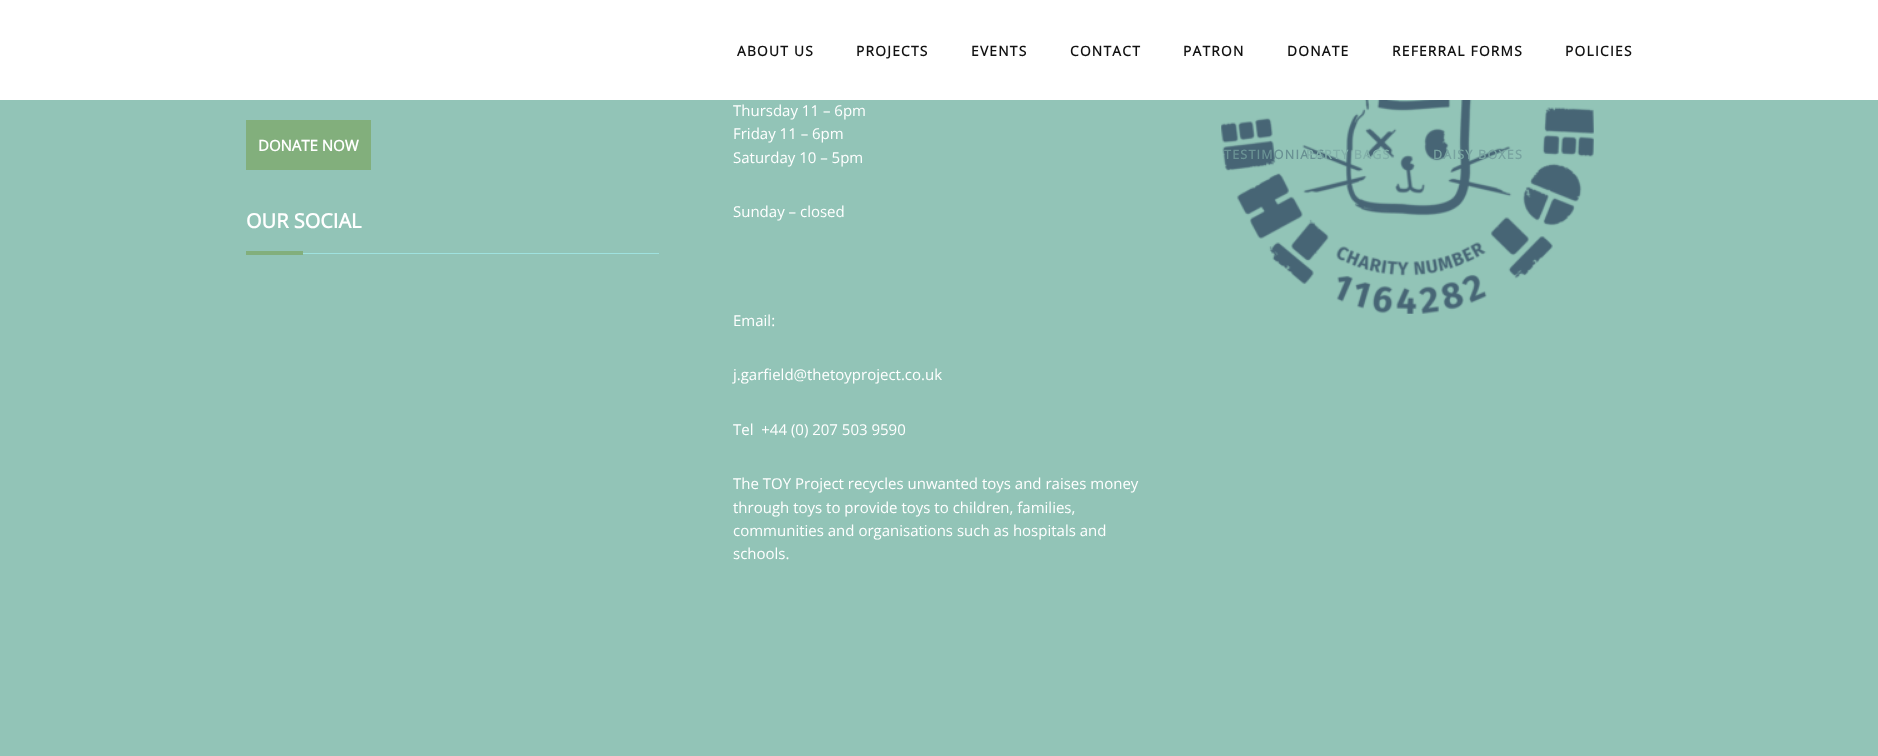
<!DOCTYPE html>
<meta charset="utf-8">
<style>body { margin: 0 } canvas { display: block }</style>
<canvas id="canvas" width="1878" height="756"></canvas>
<img id="img1" src="images/1.png" hidden>
<script>
window.onload = function () {
    const canvas = document.getElementById('canvas');
    const context = canvas.getContext('2d');
    context.miterLimit = 4;
    context.fontKerning = 'normal';

    context.fillStyle = 'rgb(146, 196, 183)';
    context.fillRect(0, 0, 1878, 756);
    context.fillStyle = 'rgb(130, 175, 124)';
    context.fillRect(246, 120, 125, 50);
    context.fillRect(246, 251, 57, 4);
    context.fillStyle = 'rgb(159, 226, 223)';
    context.fillRect(303, 253, 356, 1);
    context.drawImage(document.getElementById('img1'), 1221, 100, 373, 214);
    context.fillStyle = 'rgb(255, 255, 255)';
    context.fillRect(0, 0, 1878, 100);
    context.font = 'bold 15px Open Sans';
    context.fillText('DONATE NOW', 258, 151);
    context.font = 'bold 20px Open Sans';
    context.fillText('OUR SOCIAL', 246, 228);
    context.font = '15px Open Sans';
    context.fillText('Thursday 11 – 6pm', 733, 116);
    context.fillText('Friday 11 – 6pm', 733, 139);
    context.fillText('Saturday 10 – 5pm', 733, 163);
    context.fillText('Sunday – closed', 733, 217);
    context.fillText('Email:', 733, 326);
    context.fillText('j.garfield@thetoyproject.co.uk', 733, 380);
    context.fillText('Tel  +44 (0) 207 503 9590', 733, 435);
    context.fillText('The TOY Project recycles unwanted toys and raises money', 733, 489);
    context.fillText('through toys to provide toys to children, families,', 733, 513);
    context.fillText('communities and organisations such as hospitals and', 733, 536);
    context.fillText('schools.', 733, 559);
    context.letterSpacing = '1.25px';
    context.font = 'bold 13.75px Open Sans';
    context.fillStyle = 'rgb(18, 18, 18)';
    context.fillText('ABOUT US', 737, 56);
    context.font = 'bold 12.5px Open Sans';
    context.fillStyle = 'rgb(106, 146, 148)';
    context.fillText('TESTIMONIALS', 1224, 159);
    context.font = 'bold 13.75px Open Sans';
    context.fillStyle = 'rgb(18, 18, 18)';
    context.fillText('PROJECTS', 856, 56);
    context.fillText('EVENTS', 971, 56);
    context.fillText('CONTACT', 1070, 56);
    context.fillText('PATRON', 1183, 56);
    context.fillText('DONATE', 1287, 56);
    context.font = 'bold 12.5px Open Sans';
    context.fillStyle = 'rgb(130, 176, 169)';
    context.fillText('PARTY BAGS', 1306, 159);
    context.fillStyle = 'rgb(120, 163, 160)';
    context.fillText('DAISY BOXES', 1433, 159);
    context.font = 'bold 13.75px Open Sans';
    context.fillStyle = 'rgb(18, 18, 18)';
    context.fillText('REFERRAL FORMS', 1392, 56);
    context.fillText('POLICIES', 1565, 56);
};
</script>
